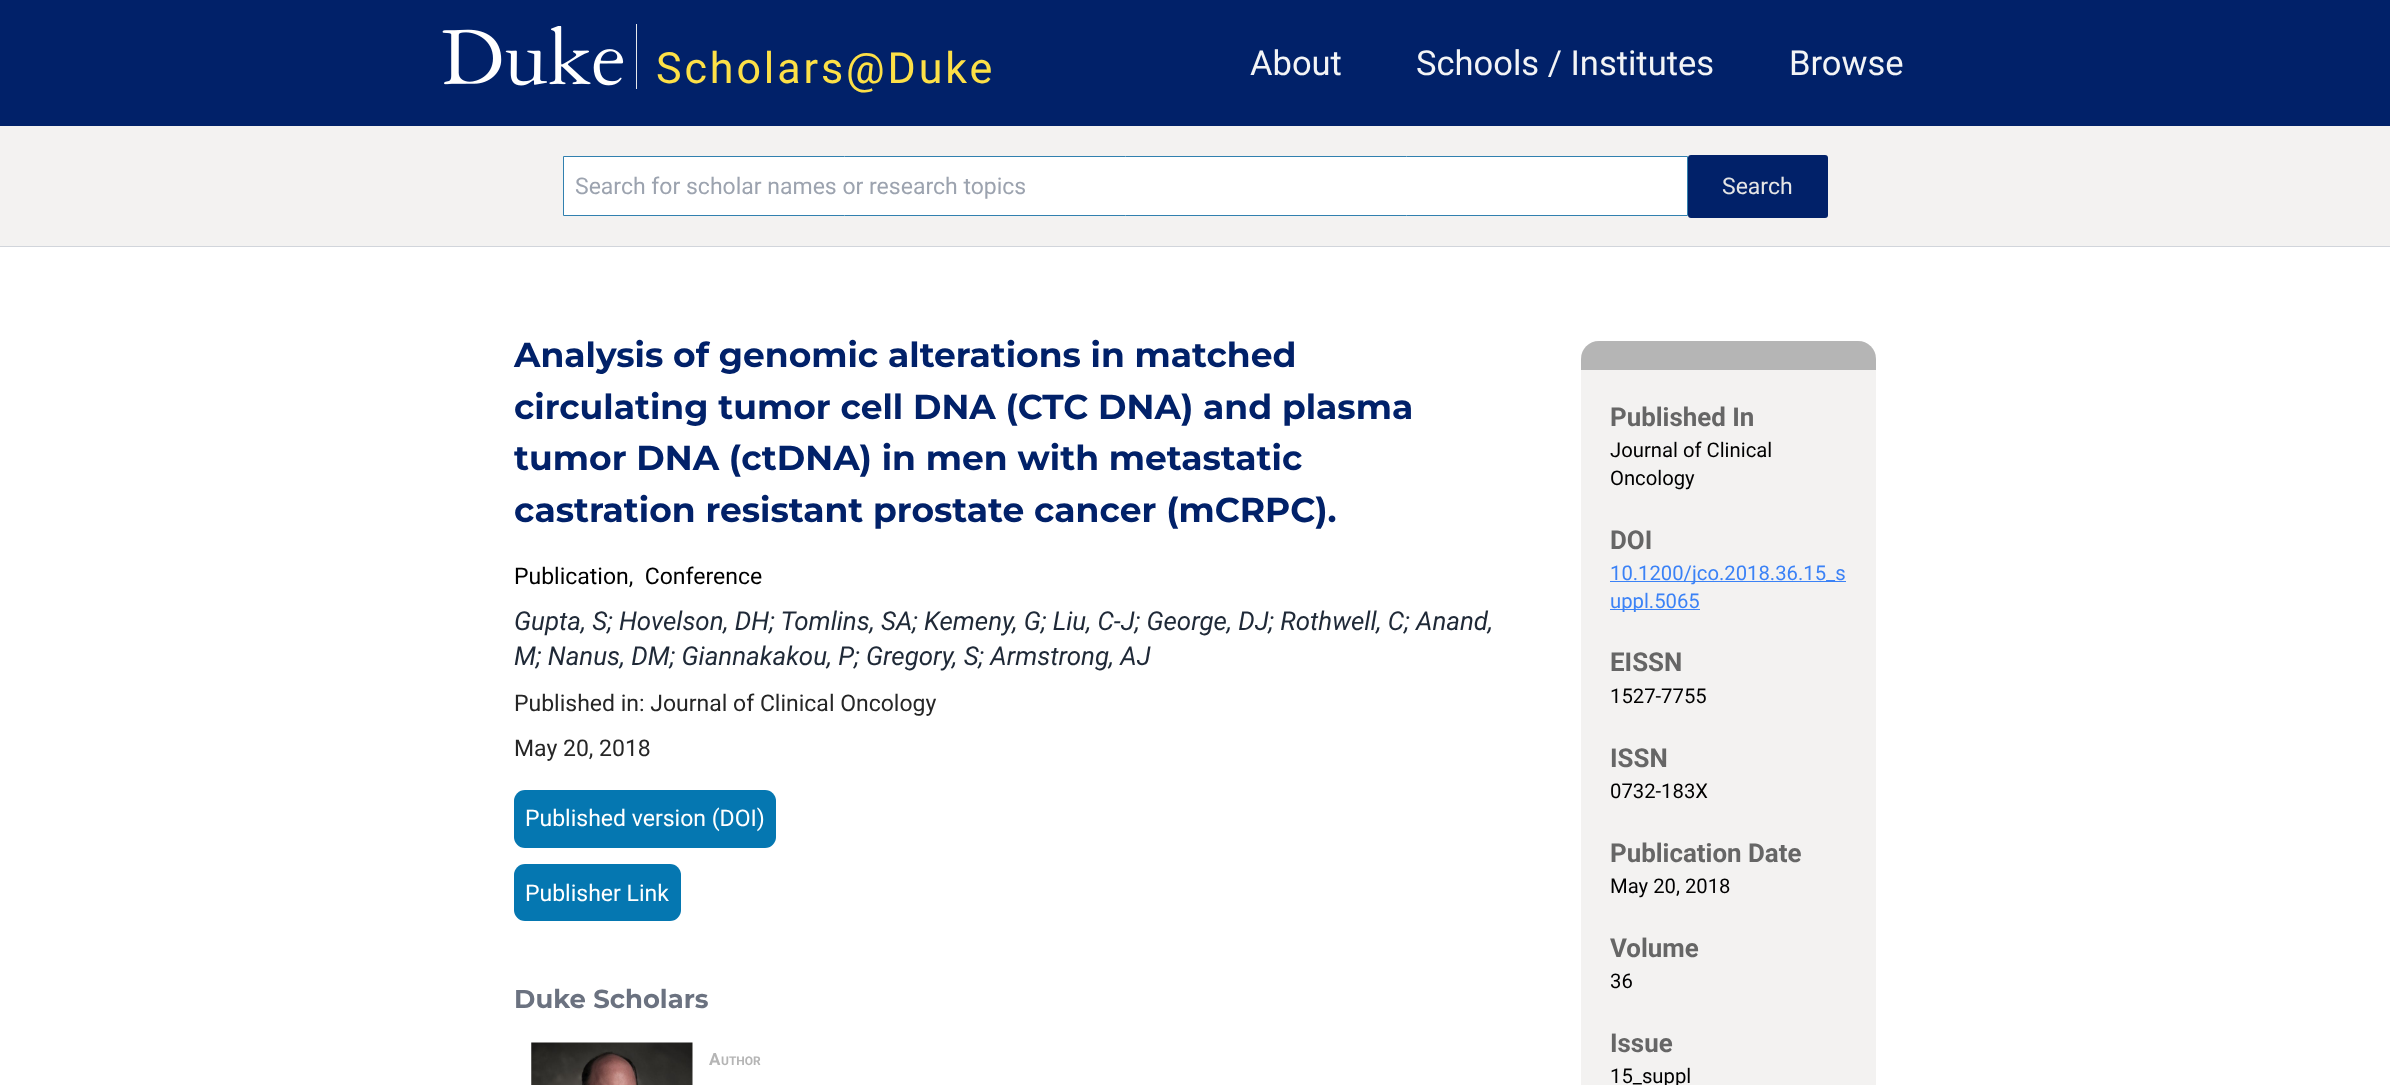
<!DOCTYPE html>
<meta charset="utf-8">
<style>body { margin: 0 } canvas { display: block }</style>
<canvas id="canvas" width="2390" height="1085"></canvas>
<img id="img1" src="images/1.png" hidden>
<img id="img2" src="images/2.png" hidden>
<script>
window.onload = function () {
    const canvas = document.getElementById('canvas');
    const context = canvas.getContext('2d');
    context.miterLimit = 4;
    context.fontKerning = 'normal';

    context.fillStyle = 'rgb(255, 255, 255)';
    context.fillRect(0, 0, 2390, 1085);
    context.fillStyle = 'rgb(1, 33, 105)';
    context.fillRect(0, 0, 2390, 126);
    context.drawImage(document.getElementById('img1'), 442, 26, 182, 60);
    context.fillStyle = 'rgb(229, 231, 235)';
    context.fillRect(636, 24, 1, 65);
    context.fillStyle = 'rgb(209, 213, 219)';
    context.fillRect(0, 246, 2390, 1);
    context.fillStyle = 'rgb(243, 242, 241)';
    context.fillRect(0, 126, 2390, 120);
    context.fillStyle = 'rgb(255, 255, 255)';
    context.beginPath();
    context.rect(563.5, 156.5, 1124, 59);
    context.fill();
    context.strokeStyle = 'rgb(49, 128, 175)';
    context.stroke();
    context.fillStyle = 'rgb(1, 33, 105)';
    context.beginPath();
    context.roundRect(1688, 155, 140, 63, 3);
    context.fill();
    context.fillStyle = 'rgb(5, 119, 177)';
    context.beginPath();
    context.roundRect(514, 790, 262, 58, 11);
    context.fill();
    context.beginPath();
    context.roundRect(514, 864, 167, 57, 11);
    context.fill();
    context.drawImage(document.getElementById('img2'), 531, 1042, 162, 43);
    context.fillStyle = 'rgb(243, 242, 241)';
    context.beginPath();
    context.roundRect(1581, 341, 295, 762, 18);
    context.fill();
    context.fillStyle = 'rgb(181, 181, 181)';
    context.beginPath();
    context.roundRect(1581, 341, 295, 29, [18, 18, 0, 0]);
    context.fill();
    context.fillStyle = 'rgb(59, 130, 246)';
    context.fillRect(1610, 581, 236, 1);
    context.fillRect(1610, 609, 90, 1);
    context.letterSpacing = '2.9px';
    context.font = '43px Roboto';
    context.fillStyle = 'rgb(253, 224, 71)';
    context.fillText('Scholars@Duke', 656, 83);
    context.letterSpacing = '0px';
    context.font = '34.5px Roboto';
    context.fillStyle = 'rgb(243, 244, 246)';
    context.fillText('About', 1250, 75);
    context.fillText('Schools / Institutes', 1416, 75);
    context.fillText('Browse', 1789, 75);
    context.font = '23px Roboto';
    context.fillStyle = 'rgb(156, 163, 175)';
    context.fillText('Search for scholar names or research topics', 575, 194);
    context.fillStyle = 'rgb(229, 229, 229)';
    context.fillText('Search', 1722, 194);
    context.font = 'bold 34.5px Montserrat';
    context.fillStyle = 'rgb(1, 33, 105)';
    context.fillText('Analysis of genomic alterations in matched', 514, 367);
    context.fillText('circulating tumor cell DNA (CTC DNA) and plasma', 514, 419);
    context.fillText('tumor DNA (ctDNA) in men with metastatic', 514, 470);
    context.fillText('castration resistant prostate cancer (mCRPC).', 514, 522);
    context.font = '23px Roboto';
    context.fillStyle = 'rgb(0, 0, 0)';
    context.fillText('Publication,  Conference', 514, 584);
    context.font = 'italic 25.9px Roboto';
    context.fillStyle = 'rgb(31, 41, 55)';
    context.fillText('Gupta, S; Hovelson, DH; Tomlins, SA; Kemeny, G; Liu, C-J; George, DJ; Rothwell, C; Anand,', 514, 630);
    context.fillText('M; Nanus, DM; Giannakakou, P; Gregory, S; Armstrong, AJ', 514, 665);
    context.font = '23px Roboto';
    context.fillStyle = 'rgb(38, 38, 38)';
    context.fillText('Published in: Journal of Clinical Oncology', 514, 711);
    context.fillText('May 20, 2018', 514, 756);
    context.fillStyle = 'rgb(255, 255, 255)';
    context.fillText('Published version (DOI)', 525, 826);
    context.fillText('Publisher Link', 525, 901);
    context.font = 'bold 25.9px Montserrat';
    context.fillStyle = 'rgb(107, 114, 128)';
    context.fillText('Duke Scholars', 514, 1008);
    context.font = 'bold 17px Roboto';
    context.fillStyle = 'rgb(181, 181, 181)';
    context.fillText('A', 709, 1065);
    context.font = 'bold 12px Roboto';
    context.fillText('UTHOR', 721, 1065);
    context.font = 'bold 25.9px Roboto';
    context.fillStyle = 'rgb(102, 102, 102)';
    context.fillText('Published In', 1610, 426);
    context.font = '20.25px Roboto';
    context.fillStyle = 'rgb(0, 0, 0)';
    context.fillText('Journal of Clinical', 1610, 457);
    context.fillText('Oncology', 1610, 485);
    context.font = 'bold 25.9px Roboto';
    context.fillStyle = 'rgb(102, 102, 102)';
    context.fillText('DOI', 1610, 549);
    context.font = '20.25px Roboto';
    context.fillStyle = 'rgb(59, 130, 246)';
    context.fillText('10.1200/jco.2018.36.15_s', 1610, 580);
    context.fillText('uppl.5065', 1610, 608);
    context.font = 'bold 25.9px Roboto';
    context.fillStyle = 'rgb(102, 102, 102)';
    context.fillText('EISSN', 1610, 671);
    context.font = '20.25px Roboto';
    context.fillStyle = 'rgb(0, 0, 0)';
    context.fillText('1527-7755', 1610, 703);
    context.font = 'bold 25.9px Roboto';
    context.fillStyle = 'rgb(102, 102, 102)';
    context.fillText('ISSN', 1610, 767);
    context.font = '20.25px Roboto';
    context.fillStyle = 'rgb(0, 0, 0)';
    context.fillText('0732-183X', 1610, 798);
    context.font = 'bold 25.9px Roboto';
    context.fillStyle = 'rgb(102, 102, 102)';
    context.fillText('Publication Date', 1610, 862);
    context.font = '20.25px Roboto';
    context.fillStyle = 'rgb(0, 0, 0)';
    context.fillText('May 20, 2018', 1610, 893);
    context.font = 'bold 25.9px Roboto';
    context.fillStyle = 'rgb(102, 102, 102)';
    context.fillText('Volume', 1610, 957);
    context.font = '20.25px Roboto';
    context.fillStyle = 'rgb(0, 0, 0)';
    context.fillText('36', 1610, 988);
    context.font = 'bold 25.9px Roboto';
    context.fillStyle = 'rgb(102, 102, 102)';
    context.fillText('Issue', 1610, 1052);
    context.font = '20.25px Roboto';
    context.fillStyle = 'rgb(0, 0, 0)';
    context.fillText('15_suppl', 1610, 1083);
};
</script>
